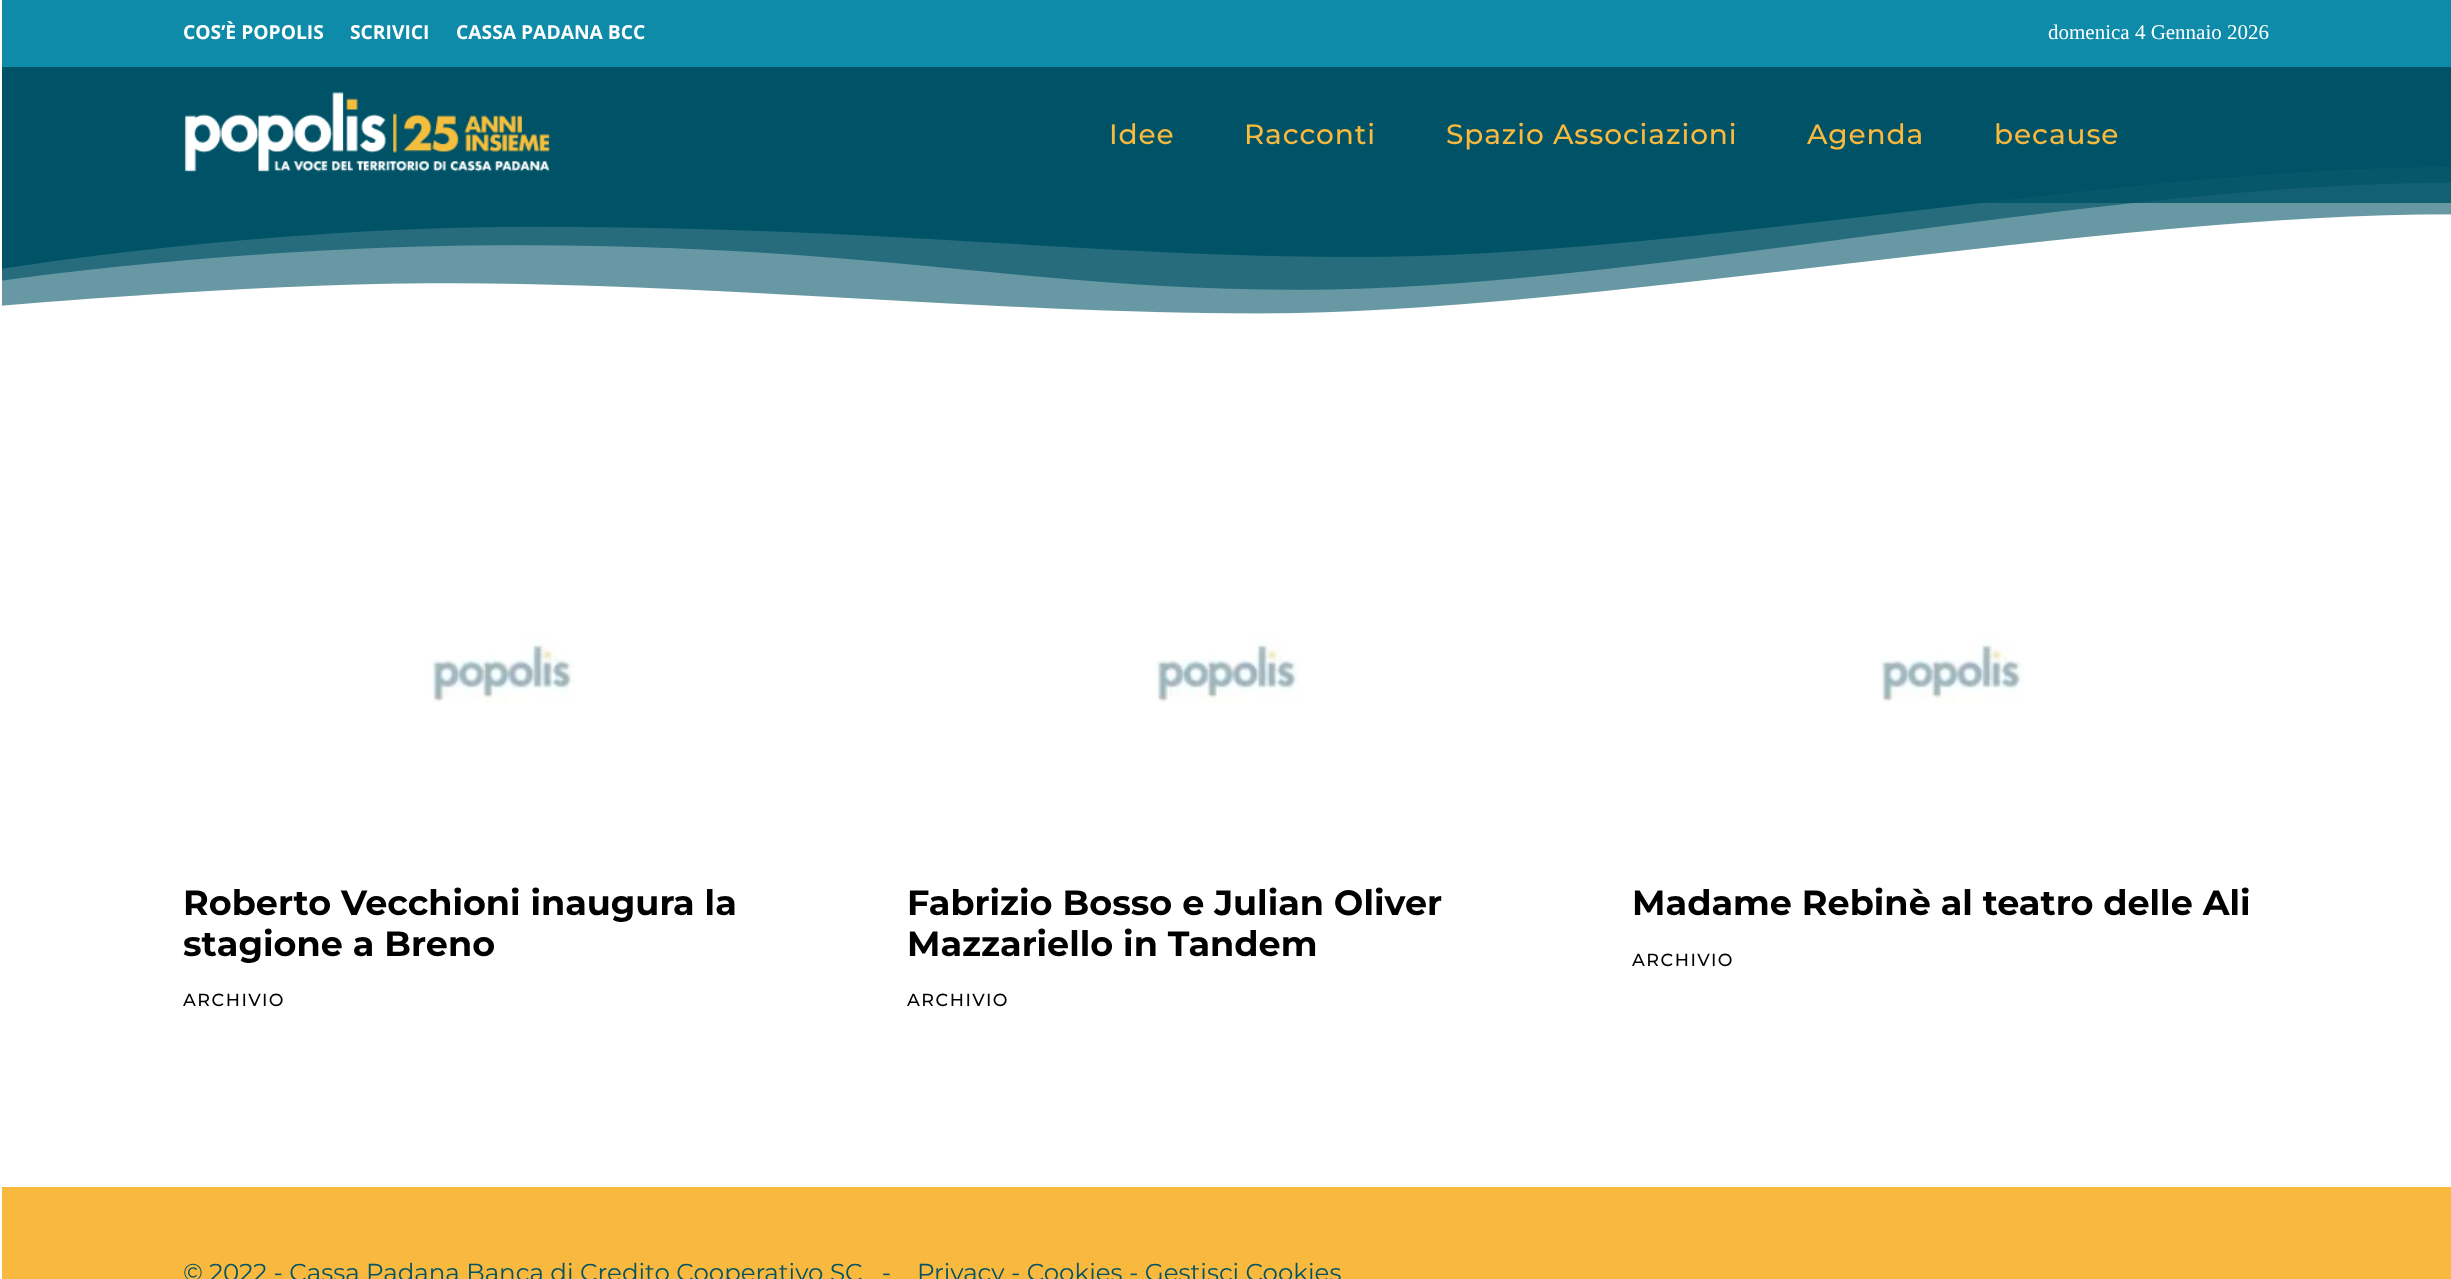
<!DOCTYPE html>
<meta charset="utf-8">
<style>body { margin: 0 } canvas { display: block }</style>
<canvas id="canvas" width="2451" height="1279"></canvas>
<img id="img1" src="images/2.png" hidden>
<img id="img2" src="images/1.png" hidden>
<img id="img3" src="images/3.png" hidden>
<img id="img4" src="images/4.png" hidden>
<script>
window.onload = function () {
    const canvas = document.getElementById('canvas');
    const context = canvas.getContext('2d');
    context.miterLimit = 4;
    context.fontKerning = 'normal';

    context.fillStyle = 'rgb(255, 255, 255)';
    context.fillRect(0, 0, 2451, 1279);
    context.fillStyle = 'rgb(13, 139, 168)';
    context.fillRect(2, 0, 2449, 67);
    context.fillStyle = 'rgb(0, 83, 102)';
    context.fillRect(2, 67, 2449, 247);
    context.drawImage(document.getElementById('img1'), 2, 167, 2449, 157);
    context.drawImage(document.getElementById('img2'), 184, 92, 367, 80);
    context.fillStyle = 'rgba(0, 83, 102, 0.8)';
    context.fillRect(1981, 167, 470, 36);
    context.drawImage(document.getElementById('img3'), 431, 638, 144, 65);
    context.drawImage(document.getElementById('img4'), 1155, 638, 144, 65);
    context.drawImage(document.getElementById('img3'), 1880, 638, 144, 65);
    context.fillStyle = 'rgb(249, 185, 62)';
    context.fillRect(2, 1187, 2449, 92);
    context.font = 'bold 19.25px Open Sans';
    context.fillStyle = 'rgb(255, 255, 255)';
    context.fillText('COS’È POPOLIS', 183, 39);
    context.fillText('SCRIVICI', 350, 39);
    context.fillText('CASSA PADANA BCC', 456, 39);
    context.font = '21px Liberation Serif';
    context.fillText('domenica 4 Gennaio 2026', 2048, 39);
    context.letterSpacing = '0.9px';
    context.font = '100 28px "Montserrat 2"';
    context.fillStyle = 'rgb(249, 185, 62)';
    context.fillText('Idee', 1109, 144);
    context.fillText('Racconti', 1244, 144);
    context.fillText('Spazio Associazioni', 1446, 144);
    context.fillText('Agenda', 1807, 144);
    context.fillText('because', 1994, 144);
    context.letterSpacing = '0px';
    context.font = '100 35px Montserrat';
    context.fillStyle = 'rgb(0, 0, 0)';
    context.fillText('Roberto Vecchioni inaugura la', 183, 915);
    context.fillText('stagione a Breno', 183, 956);
    context.letterSpacing = '1.5px';
    context.font = '100 17.5px "Montserrat 2"';
    context.fillText('ARCHIVIO', 183, 1006);
    context.letterSpacing = '0px';
    context.font = '100 35px Montserrat';
    context.fillText('Fabrizio Bosso e Julian Oliver', 907, 915);
    context.fillText('Mazzariello in Tandem', 907, 956);
    context.letterSpacing = '1.5px';
    context.font = '100 17.5px "Montserrat 2"';
    context.fillText('ARCHIVIO', 907, 1006);
    context.letterSpacing = '0px';
    context.font = '100 35px Montserrat';
    context.fillText('Madame Rebinè al teatro delle Ali', 1632, 915);
    context.letterSpacing = '1.5px';
    context.font = '100 17.5px "Montserrat 2"';
    context.fillText('ARCHIVIO', 1632, 966);
    context.letterSpacing = '0px';
    context.font = '100 24.5px "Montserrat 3"';
    context.fillStyle = 'rgb(3, 83, 100)';
    context.fillText('© 2022 - Cassa Padana Banca di Credito Cooperativo SC   -', 183, 1281);
    context.fillText('Privacy - Cookies - Gestisci Cookies', 917, 1281);
};
</script>
